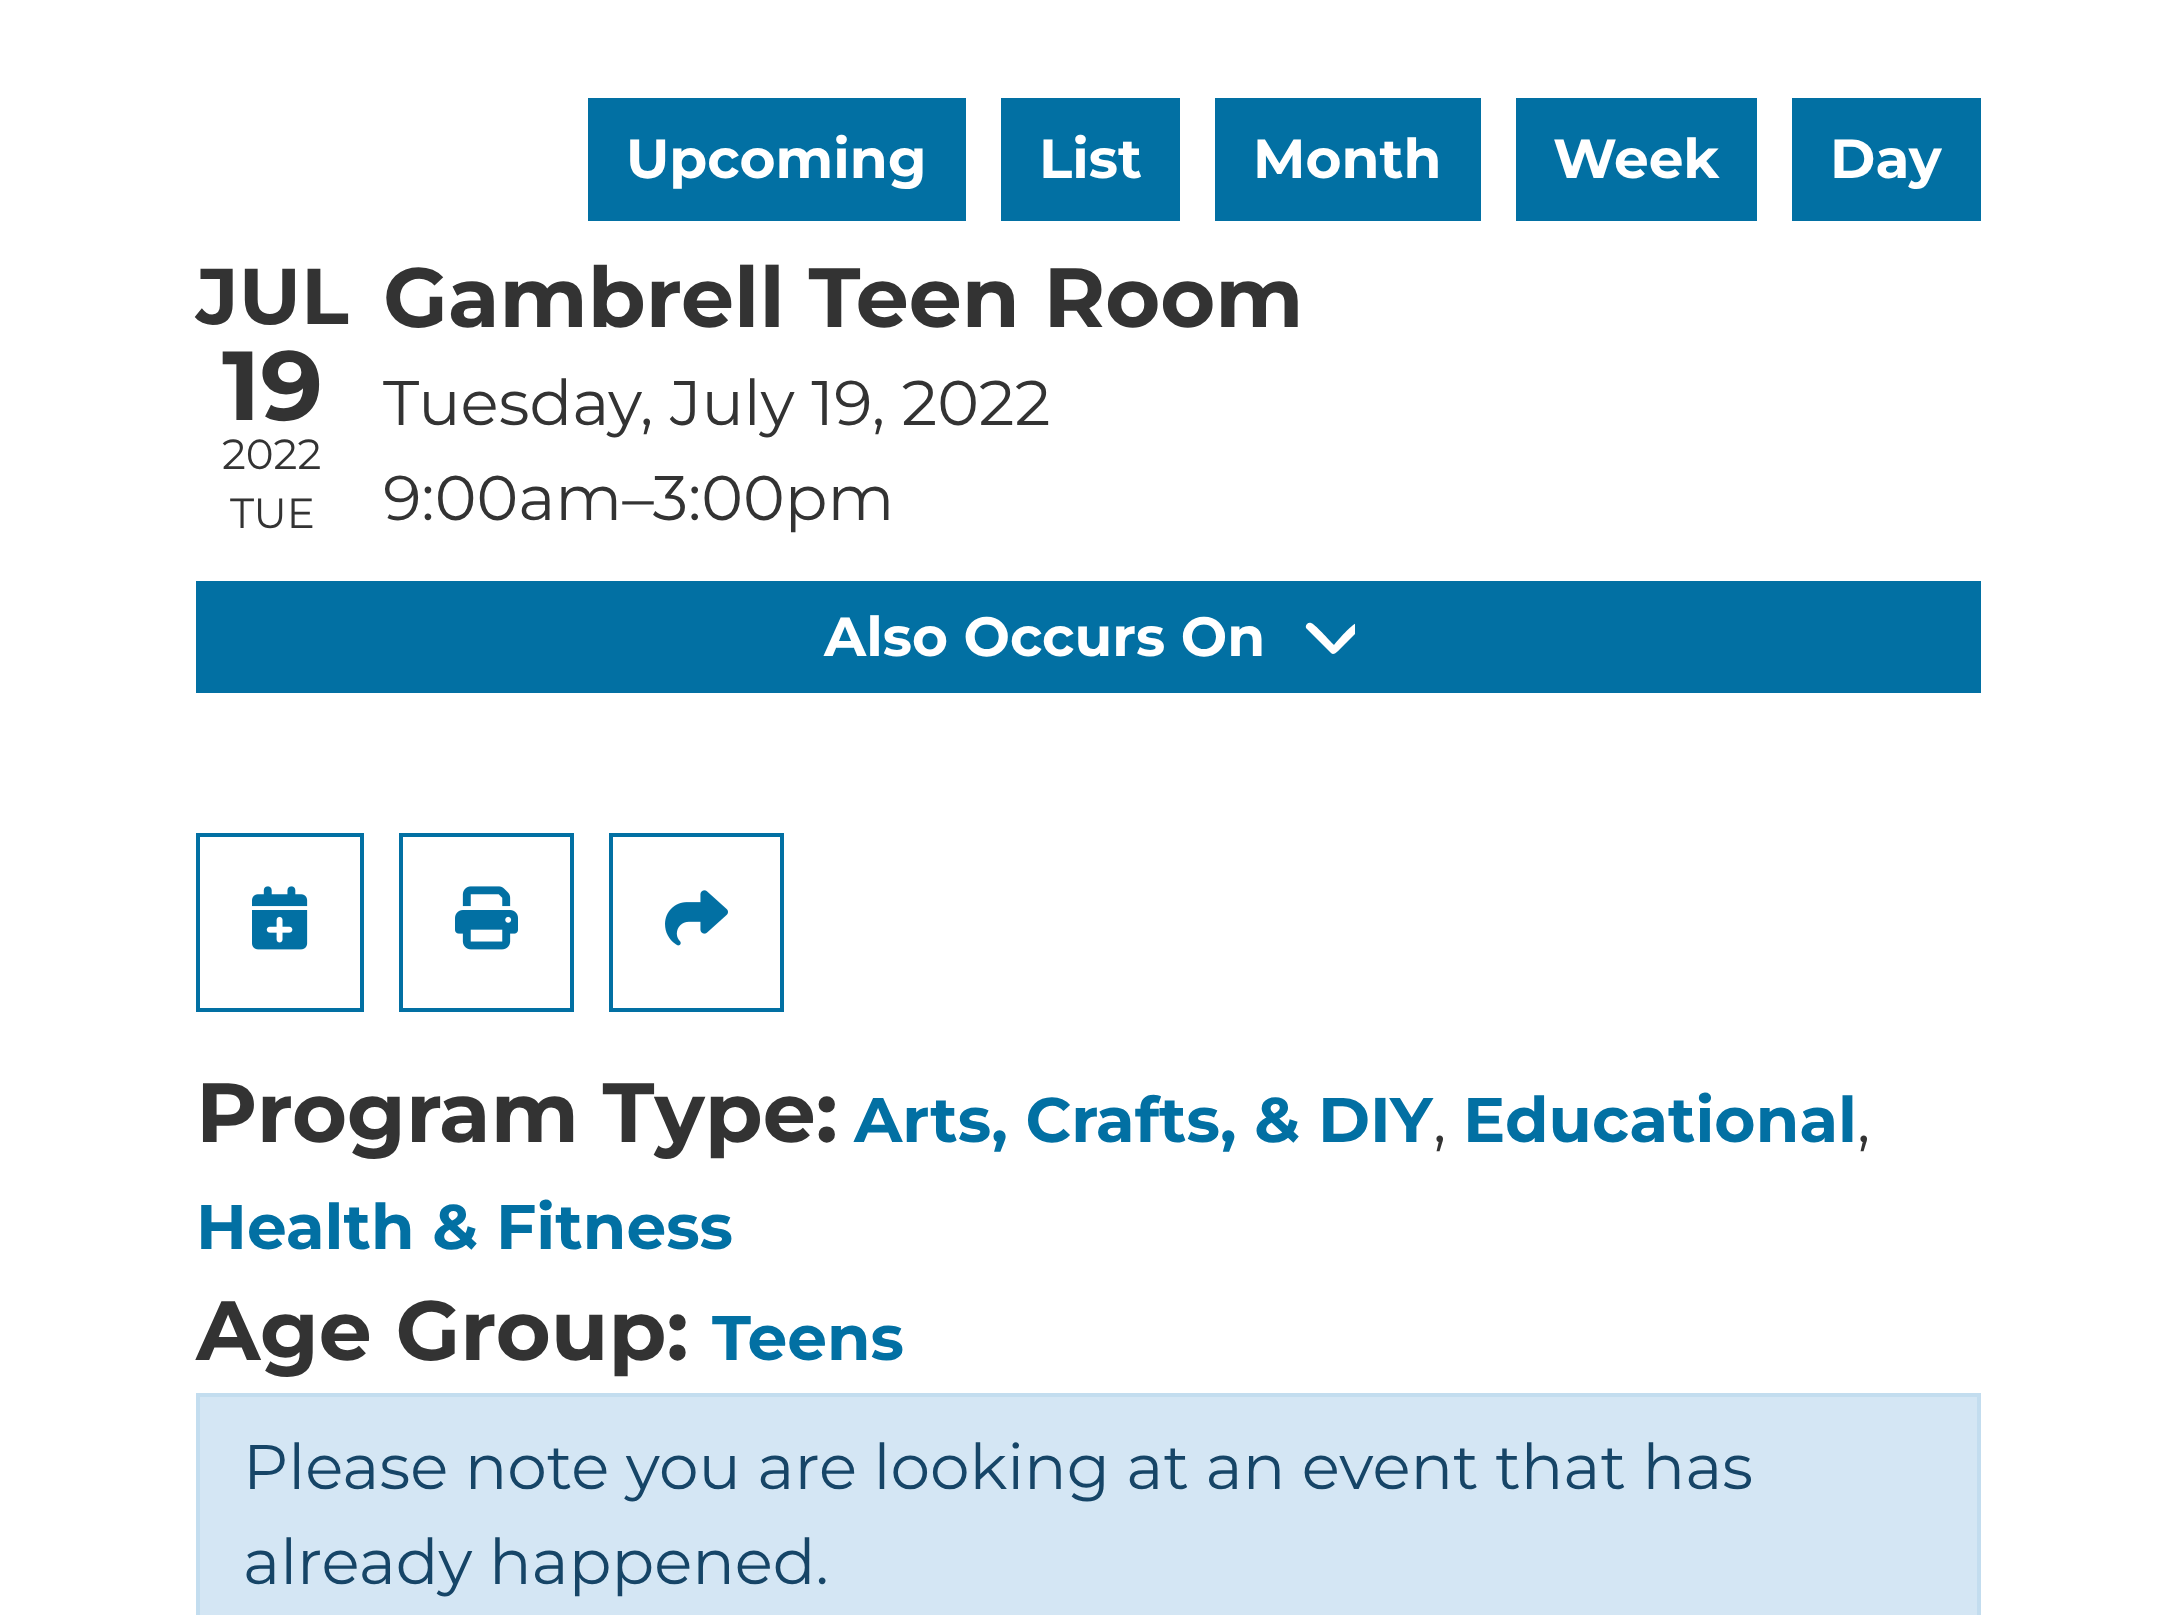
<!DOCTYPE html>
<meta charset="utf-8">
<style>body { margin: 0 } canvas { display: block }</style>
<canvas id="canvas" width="2174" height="1615"></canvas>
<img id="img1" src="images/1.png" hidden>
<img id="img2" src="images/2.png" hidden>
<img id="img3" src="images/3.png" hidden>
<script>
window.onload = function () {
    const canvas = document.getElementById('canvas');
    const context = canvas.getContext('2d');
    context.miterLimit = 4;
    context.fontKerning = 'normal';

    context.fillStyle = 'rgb(255, 255, 255)';
    context.fillRect(0, 0, 2174, 1615);
    context.fillStyle = 'rgb(2, 112, 163)';
    context.fillRect(588, 98, 378, 123);
    context.fillRect(1001, 98, 179, 123);
    context.fillRect(1215, 98, 266, 123);
    context.fillRect(1516, 98, 241, 123);
    context.fillRect(1792, 98, 189, 123);
    context.fillRect(196, 581, 1785, 112);
    context.save();
    context.beginPath();
    context.rect(1302, 606, 53, 52);
    context.clip();
    context.fillStyle = 'rgb(255, 255, 255)';
    context.beginPath();
    context.moveTo(1331, 653);
    context.bezierCurveTo(1334, 656, 1338, 651, 1340, 649);
    context.lineTo(1356, 633);
    context.bezierCurveTo(1358, 631, 1363, 628, 1360, 624);
    context.bezierCurveTo(1359, 623, 1358, 622, 1357, 623);
    context.bezierCurveTo(1353, 623, 1337, 641, 1334, 645);
    context.bezierCurveTo(1330, 641, 1314, 623, 1311, 623);
    context.bezierCurveTo(1307, 622, 1304, 627, 1307, 629);
    context.closePath();
    context.fill();
    context.restore();
    context.strokeStyle = 'rgb(2, 112, 163)';
    context.lineWidth = 4;
    context.strokeRect(198, 835, 164, 175);
    context.drawImage(document.getElementById('img1'), 252, 886, 56, 64);
    context.strokeRect(401, 835, 171, 175);
    context.drawImage(document.getElementById('img2'), 455, 886, 63, 64);
    context.strokeRect(611, 835, 171, 175);
    context.drawImage(document.getElementById('img3'), 665, 890, 63, 56);
    context.fillStyle = 'rgb(212, 230, 244)';
    context.beginPath();
    context.rect(198, 1395, 1781, 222);
    context.fill();
    context.strokeStyle = 'rgb(195, 221, 239)';
    context.stroke();
    context.font = 'bold 55px Montserrat';
    context.fillStyle = 'rgb(255, 255, 255)';
    context.fillText('Upcoming', 626, 178);
    context.fillText('List', 1039, 178);
    context.fillText('Month', 1253, 178);
    context.fillText('Week', 1553, 178);
    context.fillText('Day', 1830, 178);
    context.font = 'bold 79px Montserrat';
    context.fillStyle = 'rgb(51, 51, 51)';
    context.fillText('JUL', 196, 324);
    context.font = 'bold 98px Montserrat';
    context.fillText('19', 222, 420);
    context.font = '42px Montserrat';
    context.fillText('2022', 222, 469);
    context.fillText('TUE', 230, 528);
    context.font = 'bold 84px Montserrat';
    context.fillText('Gambrell Teen Room', 383, 327);
    context.font = '63px Montserrat';
    context.fillText('Tuesday, July 19, 2022', 383, 425);
    context.fillText('9:00am–3:00pm', 383, 520);
    context.font = 'bold 55px Montserrat';
    context.fillStyle = 'rgb(255, 255, 255)';
    context.fillText('Also Occurs On', 824, 656);
    context.font = 'bold 84px Montserrat';
    context.fillStyle = 'rgb(51, 51, 51)';
    context.fillText('Program Type:', 196, 1142);
    context.font = 'bold 63px Montserrat';
    context.fillStyle = 'rgb(2, 112, 163)';
    context.fillText('Arts, Crafts, & DIY', 854, 1142);
    context.font = '63px Montserrat';
    context.fillStyle = 'rgb(51, 51, 51)';
    context.fillText(',', 1433, 1142);
    context.font = 'bold 63px Montserrat';
    context.fillStyle = 'rgb(2, 112, 163)';
    context.fillText('Educational', 1463, 1142);
    context.font = '63px Montserrat';
    context.fillStyle = 'rgb(51, 51, 51)';
    context.fillText(',', 1857, 1142);
    context.font = 'bold 63px Montserrat';
    context.fillStyle = 'rgb(2, 112, 163)';
    context.fillText('Health & Fitness', 196, 1249);
    context.font = 'bold 84px Montserrat';
    context.fillStyle = 'rgb(51, 51, 51)';
    context.fillText('Age Group:', 196, 1360);
    context.font = 'bold 63px Montserrat';
    context.fillStyle = 'rgb(2, 112, 163)';
    context.fillText('Teens', 712, 1360);
    context.font = '63px Montserrat';
    context.fillStyle = 'rgb(22, 69, 103)';
    context.fillText('Please note you are looking at an event that has', 243, 1489);
    context.fillText('already happened.', 243, 1584);
};
</script>
